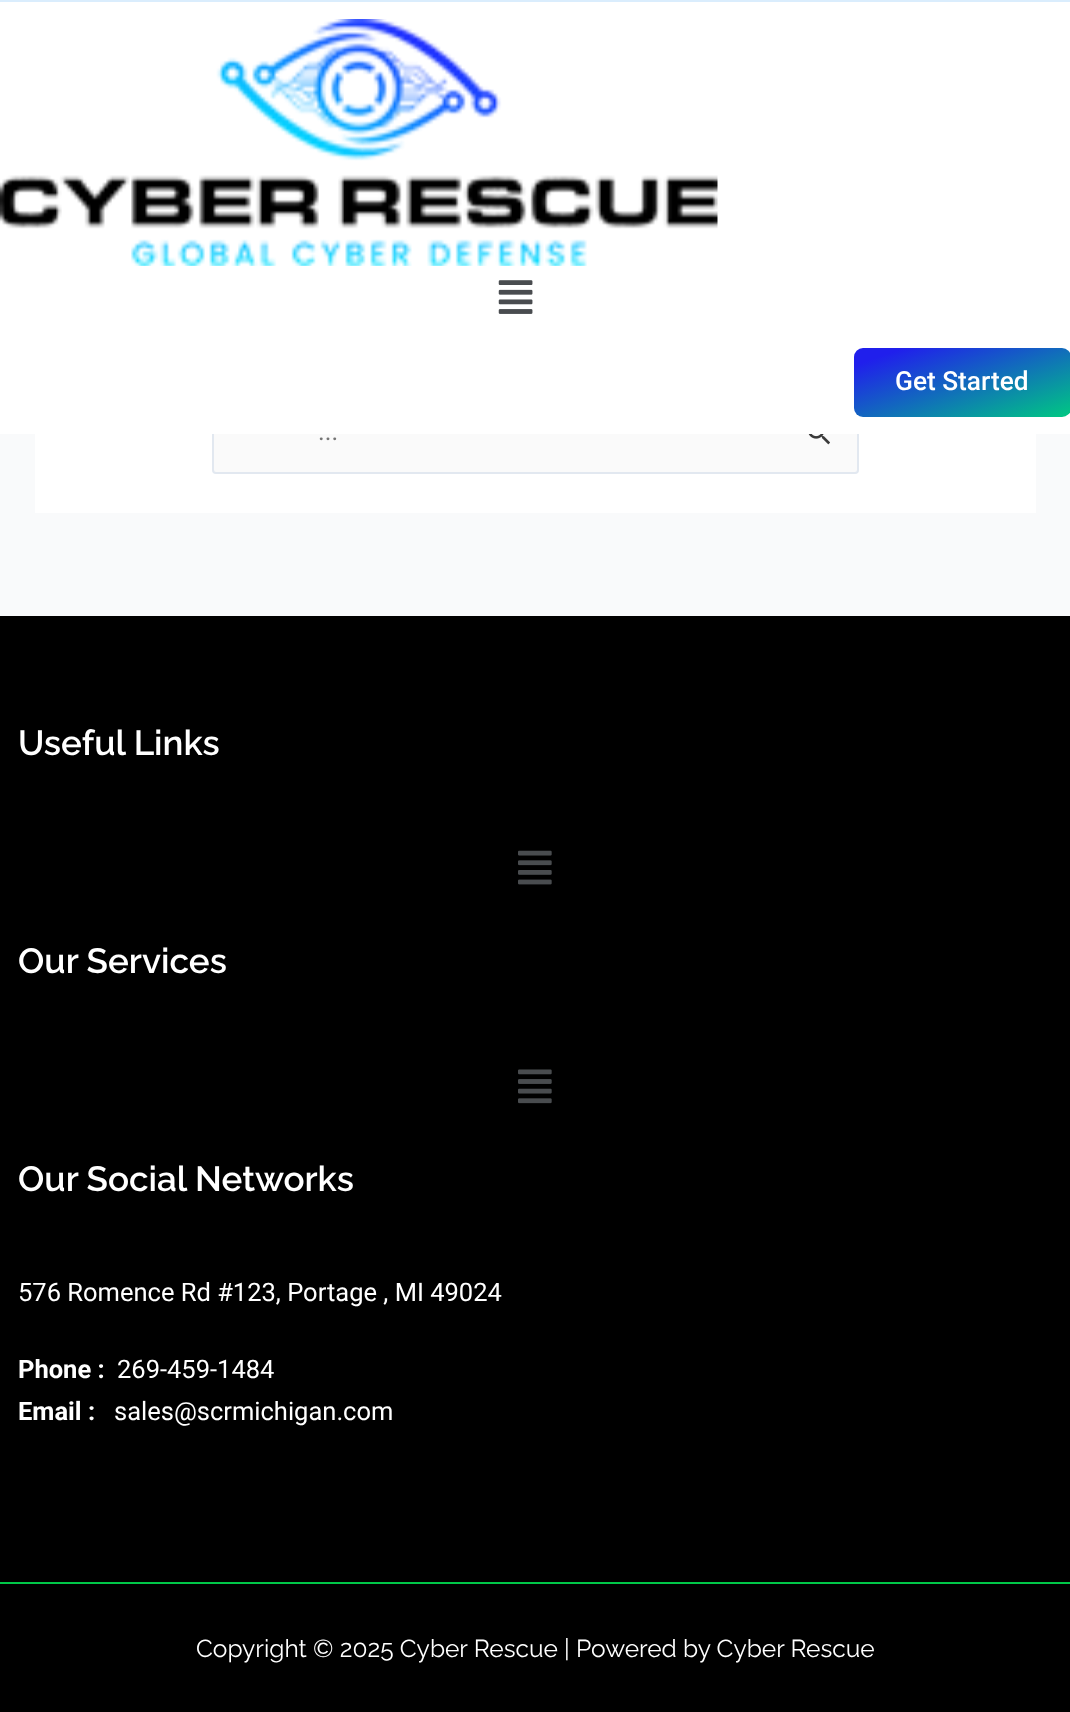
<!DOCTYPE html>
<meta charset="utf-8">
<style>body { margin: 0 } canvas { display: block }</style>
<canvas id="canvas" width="1070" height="1712"></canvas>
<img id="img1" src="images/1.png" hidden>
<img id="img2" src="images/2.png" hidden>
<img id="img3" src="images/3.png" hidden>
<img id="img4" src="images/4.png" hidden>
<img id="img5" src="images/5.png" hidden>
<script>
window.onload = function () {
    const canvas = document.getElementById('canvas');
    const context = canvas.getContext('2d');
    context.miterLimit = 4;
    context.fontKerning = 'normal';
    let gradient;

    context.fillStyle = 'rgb(249, 250, 251)';
    context.fillRect(0, 0, 1070, 1712);
    context.fillStyle = 'rgb(255, 255, 255)';
    context.fillRect(35, 434, 1001, 79);
    context.fillStyle = 'rgb(250, 250, 250)';
    context.beginPath();
    context.roundRect(213, 388, 645, 85, 3);
    context.fill();
    context.strokeStyle = 'rgb(226, 232, 240)';
    context.lineWidth = 2;
    context.stroke();
    context.fillStyle = 'rgb(255, 255, 255)';
    context.fillRect(0, 2, 1070, 432);
    context.fillStyle = 'rgb(218, 237, 253)';
    context.fillRect(0, 0, 1070, 2);
    context.drawImage(document.getElementById('img1'), 0, 19, 718, 247);
    context.drawImage(document.getElementById('img2'), 498, 280, 35, 34);
    gradient = context.createLinearGradient(940, 318, 985, 446);
    gradient.addColorStop(0.12, 'rgb(32, 31, 236)');
    gradient.addColorStop(1, 'rgb(0, 199, 131)');
    context.fillStyle = gradient;
    context.beginPath();
    context.roundRect(854, 348, 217, 69, 9);
    context.fill();
    context.drawImage(document.getElementById('img3'), 808, 434, 22, 11);
    context.fillStyle = 'rgb(0, 0, 0)';
    context.fillRect(0, 616, 1070, 966);
    context.drawImage(document.getElementById('img4'), 518, 850, 34, 35);
    context.drawImage(document.getElementById('img5'), 518, 1069, 34, 35);
    context.fillRect(0, 1584, 1070, 128);
    context.fillStyle = 'rgb(0, 199, 72)';
    context.fillRect(0, 1582, 1070, 2);
    context.font = '500 26.25px Roboto';
    context.fillStyle = 'rgb(255, 255, 255)';
    context.fillText('Get Started', 895, 390);
    context.font = '25.5px Roboto';
    context.fillStyle = 'rgb(117, 117, 117)';
    context.fillText('...', 318, 440);
    context.font = '600 35px Raleway';
    context.fillStyle = 'rgb(255, 255, 255)';
    context.fillText('Useful Links', 18, 755);
    context.fillText('Our Services', 18, 973);
    context.fillText('Our Social Networks', 18, 1191);
    context.font = '25.5px Roboto';
    context.fillText('576 Romence Rd #123, Portage , MI 49024', 18, 1301);
    context.font = 'bold 25.5px Roboto';
    context.fillText('Phone :', 18, 1378);
    context.font = '25.5px Roboto';
    context.fillText('269-459-1484', 117, 1378);
    context.font = 'bold 25.5px Roboto';
    context.fillText('Email :', 18, 1420);
    context.font = '25.5px Roboto';
    context.fillText('sales@scrmichigan.com', 114, 1420);
    context.font = '24.5px Raleway';
    context.fillText('Copyright © 2025 Cyber Rescue | Powered by Cyber Rescue', 196, 1657);
};
</script>
